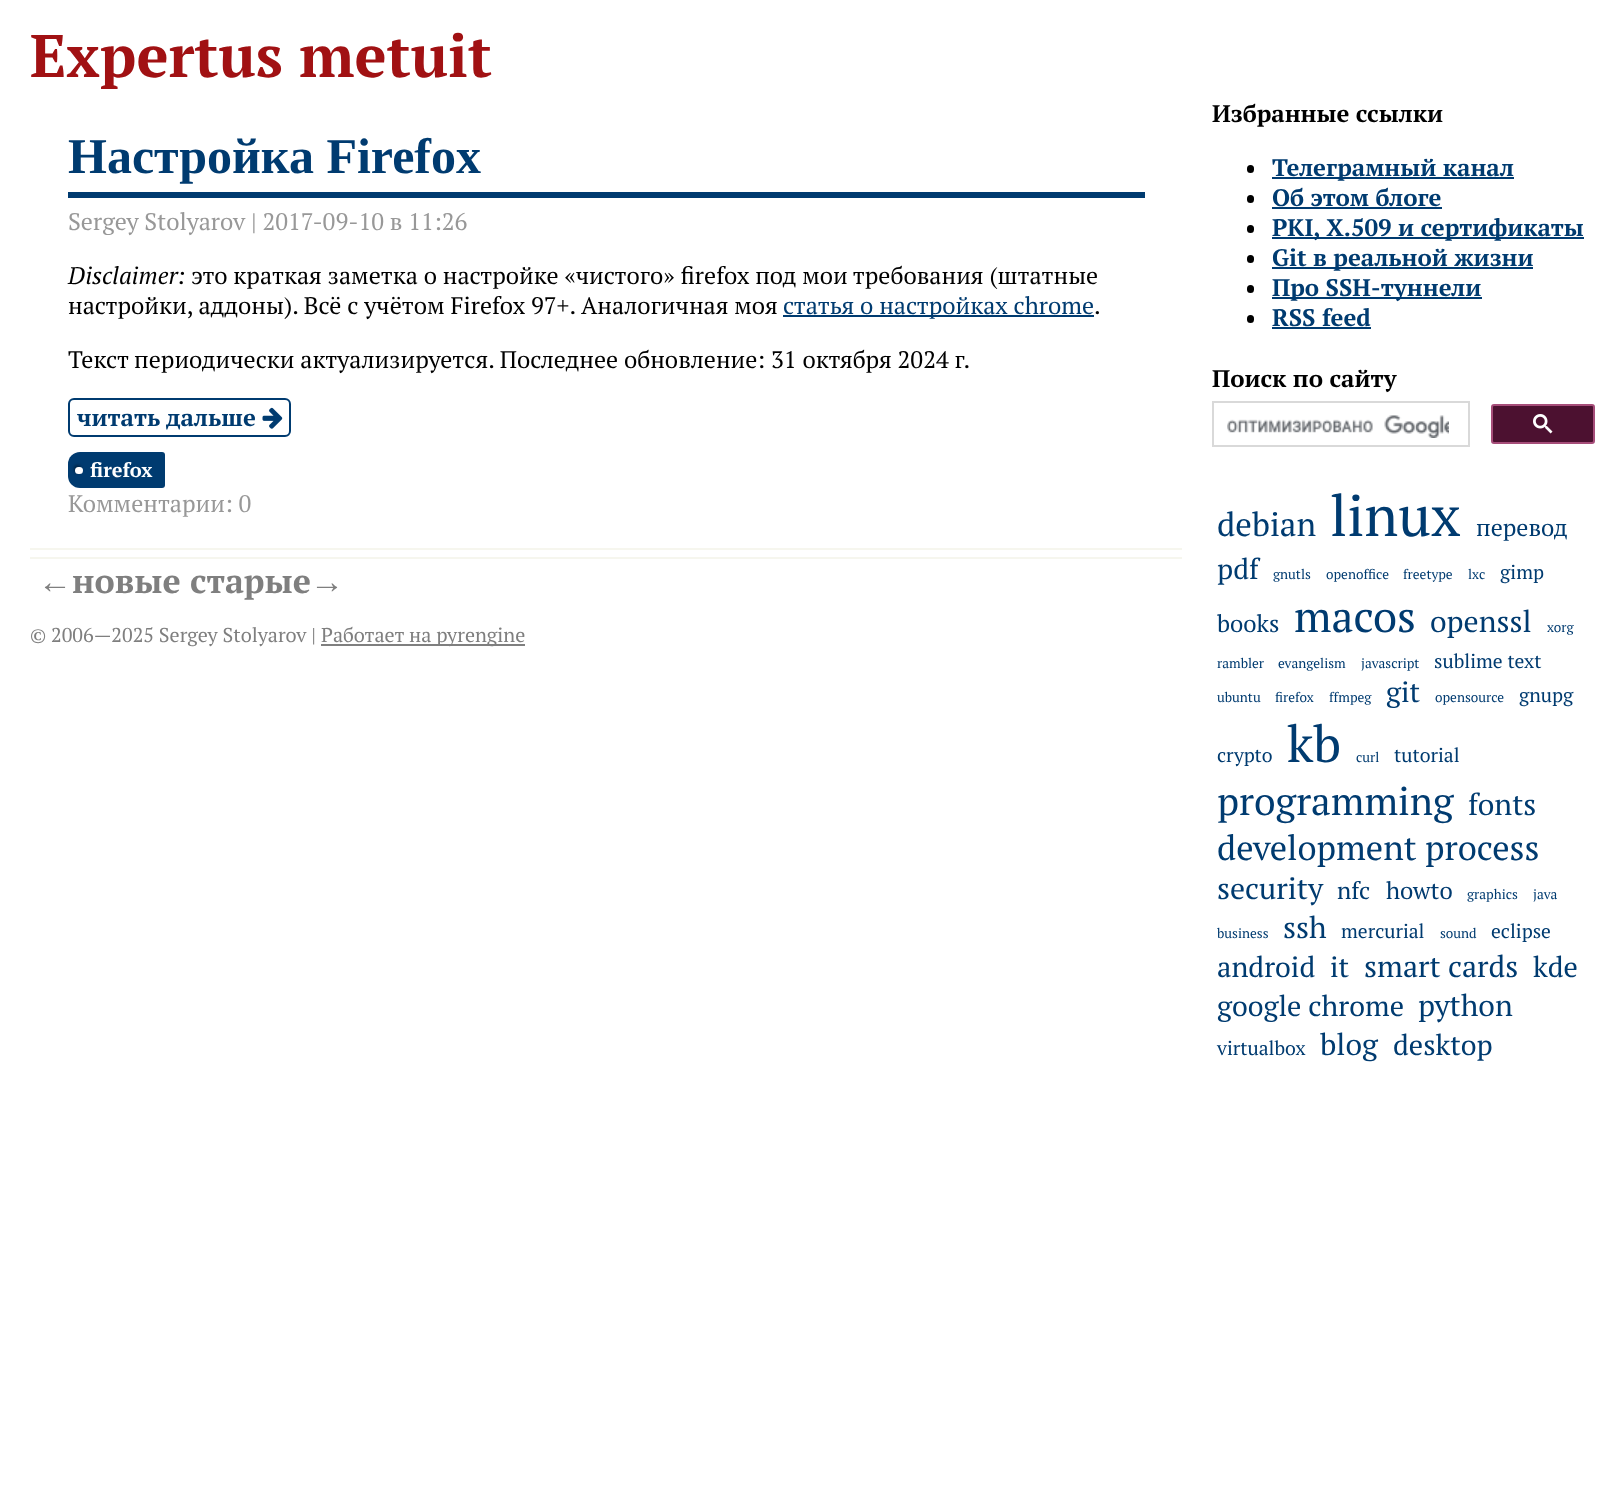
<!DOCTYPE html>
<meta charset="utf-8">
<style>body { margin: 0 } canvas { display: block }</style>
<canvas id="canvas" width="1601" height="1511"></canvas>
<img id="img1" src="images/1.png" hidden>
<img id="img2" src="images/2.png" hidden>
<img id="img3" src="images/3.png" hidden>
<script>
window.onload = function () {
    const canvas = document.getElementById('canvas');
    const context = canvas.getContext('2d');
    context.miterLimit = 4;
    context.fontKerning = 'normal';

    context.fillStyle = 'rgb(255, 255, 255)';
    context.fillRect(0, 0, 1601, 1511);
    context.fillStyle = 'rgb(0, 59, 112)';
    context.fillRect(68, 192, 1077, 6);
    context.fillRect(783, 315, 311, 2);
    context.beginPath();
    context.roundRect(69, 399, 221, 37, 5);
    context.strokeStyle = 'rgb(0, 59, 112)';
    context.lineWidth = 2;
    context.stroke();
    context.drawImage(document.getElementById('img1'), 262, 407, 21, 22);
    context.beginPath();
    context.roundRect(68, 452, 97, 36, [12, 3, 3, 12]);
    context.fill();
    context.fillStyle = 'rgba(0, 0, 0, 0.4)';
    context.filter = 'blur(1.5px)';
    context.beginPath();
    context.roundRect(74, 465, 7, 8, 3.5);
    context.fill();
    context.filter = 'none';
    context.fillStyle = 'rgb(255, 255, 255)';
    context.beginPath();
    context.roundRect(75, 467, 8, 7, 3.5);
    context.fill();
    context.fillStyle = 'rgb(246, 246, 238)';
    context.fillRect(30, 548, 1152, 2);
    context.fillRect(30, 557, 1152, 2);
    context.fillStyle = 'rgb(127, 127, 127)';
    context.fillRect(321, 644, 204, 2);
    context.fillStyle = 'rgb(0, 0, 0)';
    context.beginPath();
    context.roundRect(1247, 165, 7, 8, 3.5);
    context.fill();
    context.fillStyle = 'rgb(0, 59, 112)';
    context.fillRect(1272, 177, 242, 2);
    context.fillStyle = 'rgb(0, 0, 0)';
    context.beginPath();
    context.roundRect(1247, 195, 7, 8, 3.5);
    context.fill();
    context.fillStyle = 'rgb(0, 59, 112)';
    context.fillRect(1272, 207, 170, 2);
    context.fillStyle = 'rgb(0, 0, 0)';
    context.beginPath();
    context.roundRect(1247, 225, 7, 8, 3.5);
    context.fill();
    context.fillStyle = 'rgb(0, 59, 112)';
    context.fillRect(1272, 237, 312, 2);
    context.fillStyle = 'rgb(0, 0, 0)';
    context.beginPath();
    context.roundRect(1247, 255, 7, 8, 3.5);
    context.fill();
    context.fillStyle = 'rgb(0, 59, 112)';
    context.fillRect(1272, 267, 261, 2);
    context.fillStyle = 'rgb(0, 0, 0)';
    context.beginPath();
    context.roundRect(1247, 285, 7, 8, 3.5);
    context.fill();
    context.fillStyle = 'rgb(0, 59, 112)';
    context.fillRect(1272, 297, 210, 2);
    context.fillStyle = 'rgb(0, 0, 0)';
    context.beginPath();
    context.roundRect(1247, 315, 7, 8, 3.5);
    context.fill();
    context.fillStyle = 'rgb(0, 59, 112)';
    context.fillRect(1272, 327, 99, 2);
    context.strokeStyle = 'rgb(217, 217, 217)';
    context.strokeRect(1213, 402, 256, 44);
    context.drawImage(document.getElementById('img2'), 1227, 415, 222, 23);
    context.fillStyle = 'rgb(76, 17, 48)';
    context.beginPath();
    context.roundRect(1492, 405, 102, 38, 2);
    context.fill();
    context.strokeStyle = 'rgb(166, 77, 121)';
    context.stroke();
    context.drawImage(document.getElementById('img3'), 1533, 414, 20, 20);
    context.font = 'bold 60px PT Serif';
    context.fillStyle = 'rgb(161, 17, 19)';
    context.fillText('Expertus metuit', 30, 77);
    context.font = 'bold 50px "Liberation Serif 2"';
    context.fillStyle = 'rgb(0, 59, 112)';
    context.fillText('Настройка Firefox', 68, 173);
    context.font = '24px PT Serif';
    context.fillStyle = 'rgb(152, 152, 152)';
    context.fillText('Sergey Stolyarov | 2017-09-10 в 11:26', 68, 230);
    context.font = 'italic 24px PT Serif';
    context.fillStyle = 'rgb(0, 0, 0)';
    context.fillText('Disclaimer:', 68, 284);
    context.font = '24px PT Serif';
    context.fillText('это краткая заметка о настройке «чистого» firefox под мои требования (штатные', 191, 284);
    context.fillText('настройки, аддоны). Всё с учётом Firefox 97+. Аналогичная моя', 68, 314);
    context.fillStyle = 'rgb(0, 59, 112)';
    context.fillText('статья о настройках chrome', 783, 314);
    context.fillStyle = 'rgb(0, 0, 0)';
    context.fillText('.', 1094, 314);
    context.fillText('Текст периодически актуализируется. Последнее обновление: 31 октября 2024 г.', 68, 368);
    context.font = 'bold 24px PT Serif';
    context.fillStyle = 'rgb(0, 59, 112)';
    context.fillText('читать дальше', 77, 426);
    context.font = 'bold 20px PT Serif';
    context.fillStyle = 'rgb(255, 255, 255)';
    context.fillText('firefox', 90, 477);
    context.font = '24px PT Serif';
    context.fillStyle = 'rgb(152, 152, 152)';
    context.fillText('Комментарии: 0', 68, 512);
    context.font = 'bold 34px Liberation Serif';
    context.fillStyle = 'rgb(127, 127, 127)';
    context.fillText('←', 38, 593);
    context.font = 'bold 34px PT Serif';
    context.fillText('новые старые', 72, 593);
    context.font = 'bold 34px Liberation Serif';
    context.fillText('→', 310, 593);
    context.font = '20px PT Serif';
    context.fillText('© 2006—2025 Sergey Stolyarov |', 30, 642);
    context.fillText('Работает на pyrengine', 321, 642);
    context.font = 'bold 24px PT Serif';
    context.fillStyle = 'rgb(0, 0, 0)';
    context.fillText('Избранные ссылки', 1212, 122);
    context.fillStyle = 'rgb(0, 59, 112)';
    context.fillText('Телеграмный канал', 1272, 176);
    context.fillText('Об этом блоге', 1272, 206);
    context.fillText('PKI, X.509 и сертификаты', 1272, 236);
    context.fillText('Git в реальной жизни', 1272, 266);
    context.fillText('Про SSH-туннели', 1272, 296);
    context.fillText('RSS feed', 1272, 326);
    context.fillStyle = 'rgb(0, 0, 0)';
    context.fillText('Поиск по сайту', 1212, 387);
    context.font = '33px PT Serif';
    context.fillStyle = 'rgb(0, 59, 112)';
    context.fillText('debian', 1217, 536);
    context.font = '57px PT Serif';
    context.fillText('linux', 1330, 536);
    context.font = '24px PT Serif';
    context.fillText('перевод', 1476, 536);
    context.font = '28.5px PT Serif';
    context.fillText('pdf', 1217, 579);
    context.font = '13.5px PT Serif';
    context.fillText('gnutls', 1273, 579);
    context.fillText('openoffice', 1326, 579);
    context.fillText('freetype', 1403, 579);
    context.fillText('lxc', 1468, 579);
    context.font = '19.5px PT Serif';
    context.fillText('gimp', 1500, 579);
    context.font = '24px PT Serif';
    context.fillText('books', 1217, 632);
    context.font = '43.5px PT Serif';
    context.fillText('macos', 1294, 632);
    context.font = '30px PT Serif';
    context.fillText('openssl', 1430, 632);
    context.font = '13.5px PT Serif';
    context.fillText('xorg', 1547, 632);
    context.fillText('rambler', 1217, 668);
    context.fillText('evangelism', 1278, 668);
    context.fillText('javascript', 1361, 668);
    context.font = '19.5px PT Serif';
    context.fillText('sublime text', 1434, 668);
    context.font = '13.5px PT Serif';
    context.fillText('ubuntu', 1217, 702);
    context.fillText('firefox', 1275, 702);
    context.fillText('ffmpeg', 1329, 702);
    context.font = '28.5px PT Serif';
    context.fillText('git', 1386, 702);
    context.font = '13.5px PT Serif';
    context.fillText('opensource', 1435, 702);
    context.font = '19.5px PT Serif';
    context.fillText('gnupg', 1519, 702);
    context.fillText('crypto', 1217, 762);
    context.font = '51px PT Serif';
    context.fillText('kb', 1287, 762);
    context.font = '13.5px PT Serif';
    context.fillText('curl', 1356, 762);
    context.font = '19.5px PT Serif';
    context.fillText('tutorial', 1394, 762);
    context.font = '39px PT Serif';
    context.fillText('programming', 1217, 815);
    context.font = '30px PT Serif';
    context.fillText('fonts', 1468, 815);
    context.font = '34.5px PT Serif';
    context.fillText('development process', 1217, 860);
    context.font = '30px PT Serif';
    context.fillText('security', 1217, 899);
    context.font = '24px PT Serif';
    context.fillText('nfc', 1337, 899);
    context.fillText('howto', 1386, 899);
    context.font = '13.5px PT Serif';
    context.fillText('graphics', 1467, 899);
    context.fillText('java', 1533, 899);
    context.fillText('business', 1217, 938);
    context.font = '30px PT Serif';
    context.fillText('ssh', 1283, 938);
    context.font = '19.5px PT Serif';
    context.fillText('mercurial', 1341, 938);
    context.font = '13.5px PT Serif';
    context.fillText('sound', 1440, 938);
    context.font = '19.5px PT Serif';
    context.fillText('eclipse', 1491, 938);
    context.font = '28.5px PT Serif';
    context.fillText('android', 1217, 977);
    context.fillText('it', 1330, 977);
    context.font = '30px PT Serif';
    context.fillText('smart cards', 1364, 977);
    context.font = '28.5px PT Serif';
    context.fillText('kde', 1533, 977);
    context.fillText('google chrome', 1217, 1016);
    context.font = '30px PT Serif';
    context.fillText('python', 1418, 1016);
    context.font = '19.5px PT Serif';
    context.fillText('virtualbox', 1217, 1055);
    context.font = '30px PT Serif';
    context.fillText('blog', 1320, 1055);
    context.font = '28.5px PT Serif';
    context.fillText('desktop', 1393, 1055);
};
</script>
